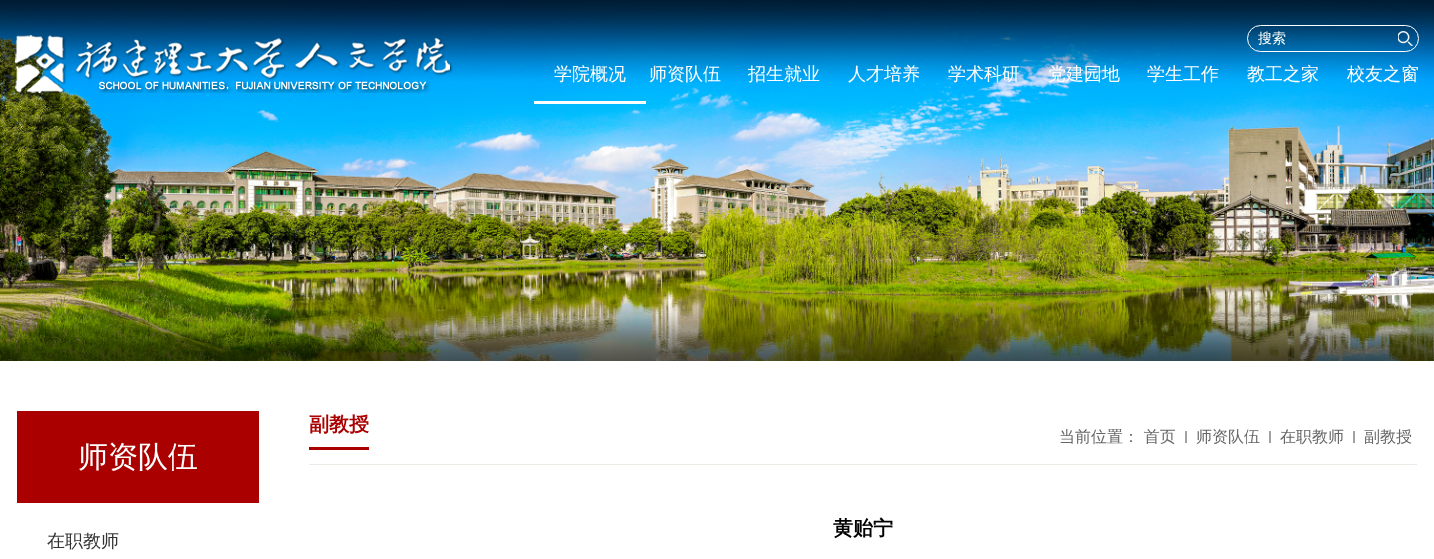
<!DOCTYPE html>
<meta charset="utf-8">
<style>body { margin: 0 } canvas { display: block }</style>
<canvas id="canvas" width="1434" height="559"></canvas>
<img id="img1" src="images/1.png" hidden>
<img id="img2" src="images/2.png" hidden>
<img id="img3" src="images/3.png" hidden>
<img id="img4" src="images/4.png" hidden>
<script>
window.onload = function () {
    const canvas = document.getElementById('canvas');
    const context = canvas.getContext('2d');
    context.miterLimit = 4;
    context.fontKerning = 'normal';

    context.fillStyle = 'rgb(255, 255, 255)';
    context.fillRect(0, 0, 1434, 559);
    context.drawImage(document.getElementById('img1'), 0, 0, 1434, 361);
    context.drawImage(document.getElementById('img2'), 0, 0, 1434, 361);
    context.drawImage(document.getElementById('img3'), 15, 35, 438, 58);
    context.beginPath();
    context.roundRect(1247.5, 25.5, 171, 26, 13);
    context.strokeStyle = 'rgb(255, 255, 255)';
    context.stroke();
    context.drawImage(document.getElementById('img4'), 1398, 31, 15, 15);
    context.fillRect(534, 101, 112, 3);
    context.fillStyle = 'rgb(170, 1, 0)';
    context.fillRect(17, 411, 242, 92);
    context.fillRect(309, 447, 60, 3);
    context.fillStyle = 'rgb(236, 234, 228)';
    context.fillRect(309, 464, 1108, 1);
    context.fillStyle = 'rgb(162, 162, 162)';
    context.fillRect(1185, 431, 2, 12);
    context.fillRect(1269, 431, 2, 12);
    context.fillRect(1353, 431, 2, 12);
    context.font = '500 14px WenQuanYi Zen Hei';
    context.fillStyle = 'rgb(255, 255, 255)';
    context.fillText('搜索', 1258, 43);
    context.font = '500 18px WenQuanYi Zen Hei';
    context.fillText('学院概况', 554, 80);
    context.fillText('师资队伍', 649, 80);
    context.fillText('招生就业', 748, 80);
    context.fillText('人才培养', 848, 80);
    context.fillText('学术科研', 948, 80);
    context.fillText('党建园地', 1048, 80);
    context.fillText('学生工作', 1147, 80);
    context.fillText('教工之家', 1247, 80);
    context.fillText('校友之窗', 1347, 80);
    context.font = '500 30px WenQuanYi Zen Hei';
    context.fillText('师资队伍', 78, 467);
    context.font = '500 18px WenQuanYi Zen Hei';
    context.fillStyle = 'rgb(51, 51, 51)';
    context.fillText('在职教师', 47, 547);
    context.font = 'bold 20px WenQuanYi Zen Hei';
    context.fillStyle = 'rgb(170, 1, 0)';
    context.fillText('副教授', 309, 431);
    context.font = '500 16px WenQuanYi Zen Hei';
    context.fillStyle = 'rgb(102, 102, 102)';
    context.fillText('当前位置： 首页', 1059, 442);
    context.fillText('师资队伍', 1196, 442);
    context.fillText('在职教师', 1280, 442);
    context.fillText('副教授', 1364, 442);
    context.font = 'bold 20px WenQuanYi Zen Hei';
    context.fillStyle = 'rgb(0, 0, 0)';
    context.fillText('黄贻宁', 833, 535);
};
</script>
